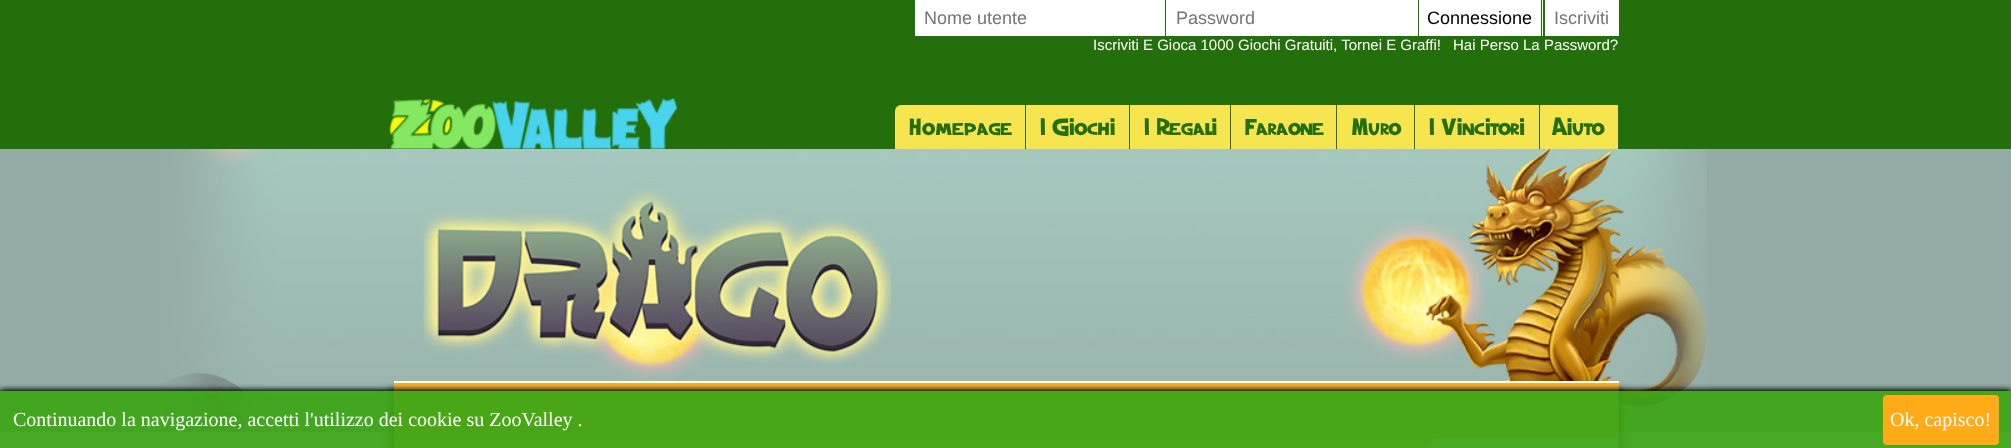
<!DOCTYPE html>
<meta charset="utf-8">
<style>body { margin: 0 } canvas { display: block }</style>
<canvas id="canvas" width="2011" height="448"></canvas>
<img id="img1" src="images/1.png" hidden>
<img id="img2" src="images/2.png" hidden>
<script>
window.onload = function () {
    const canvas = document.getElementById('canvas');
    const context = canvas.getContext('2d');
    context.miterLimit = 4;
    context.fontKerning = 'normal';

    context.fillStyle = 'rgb(223, 231, 229)';
    context.fillRect(0, 0, 2011, 448);
    context.fillStyle = 'rgb(35, 111, 11)';
    context.fillRect(0, 0, 2011, 149);
    context.fillStyle = 'rgb(255, 255, 255)';
    context.fillRect(915, 0, 250, 36);
    context.fillRect(1166, 0, 252, 36);
    context.fillRect(1419, 0, 124, 36);
    context.fillStyle = 'rgb(35, 111, 11)';
    context.fillRect(1541, 0, 1, 36);
    context.fillStyle = 'rgb(255, 255, 255)';
    context.fillRect(1545, 0, 74, 36);
    context.drawImage(document.getElementById('img1'), 389, 98, 289, 51);
    context.fillStyle = 'rgb(247, 229, 80)';
    context.beginPath();
    context.roundRect(895, 105, 131, 44, [6, 0, 0, 0]);
    context.fill();
    context.fillStyle = 'rgb(35, 111, 11)';
    context.fillRect(1025, 105, 1, 44);
    context.fillStyle = 'rgb(247, 229, 80)';
    context.fillRect(1026, 105, 103, 44);
    context.fillRect(1130, 105, 100, 44);
    context.fillRect(1231, 105, 183, 44);
    context.fillStyle = 'rgb(35, 111, 11)';
    context.fillRect(1336, 105, 1, 44);
    context.fillStyle = 'rgb(247, 229, 80)';
    context.fillRect(1415, 105, 124, 44);
    context.fillRect(1540, 105, 78, 44);
    context.fillStyle = 'rgb(147, 172, 166)';
    context.fillRect(0, 149, 2011, 283);
    context.drawImage(document.getElementById('img2'), 159, 149, 1548, 283);
    context.fillStyle = 'rgb(0, 0, 0)';
    context.filter = 'blur(5px)';
    context.beginPath();
    context.rect(391, 391, 1230, 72);
    context.fill();
    context.filter = 'none';
    context.fillStyle = 'rgb(255, 255, 255)';
    context.fillRect(394, 381, 1225, 67);
    context.fillStyle = 'rgb(248, 179, 40)';
    context.fillRect(394, 383, 1225, 55);
    context.fillStyle = 'rgb(230, 188, 103)';
    context.fillRect(394, 438, 1041, 10);
    context.save();
    context.beginPath();
    context.rect(394, 438, 1041, 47);
    context.clip();
    context.fillStyle = 'rgb(255, 255, 255)';
    context.beginPath();
    context.moveTo(1445, 429);
    context.lineTo(1468, 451);
    context.lineTo(1401, 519);
    context.lineTo(1378, 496);
    context.closePath();
    context.fill();
    context.restore();
    context.save();
    context.beginPath();
    context.moveTo(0, 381);
    context.lineTo(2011, 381);
    context.lineTo(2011, 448);
    context.lineTo(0, 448);
    context.closePath();
    context.moveTo(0, 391);
    context.lineTo(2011, 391);
    context.lineTo(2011, 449);
    context.lineTo(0, 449);
    context.closePath();
    context.clip('evenodd');
    context.fillStyle = 'rgb(0, 0, 0)';
    context.filter = 'blur(3px)';
    context.beginPath();
    context.rect(0, 391, 2011, 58);
    context.fill();
    context.filter = 'none';
    context.restore();
    context.fillStyle = 'rgba(61, 166, 23, 0.75)';
    context.fillRect(0, 391, 2011, 57);
    context.save();
    context.beginPath();
    context.moveTo(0, 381);
    context.lineTo(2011, 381);
    context.lineTo(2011, 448);
    context.lineTo(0, 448);
    context.closePath();
    context.moveTo(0, 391);
    context.lineTo(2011, 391);
    context.lineTo(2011, 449);
    context.lineTo(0, 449);
    context.closePath();
    context.clip('evenodd');
    context.fillStyle = 'rgb(0, 0, 0)';
    context.filter = 'blur(3px)';
    context.beginPath();
    context.rect(0, 391, 2011, 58);
    context.fill();
    context.filter = 'none';
    context.restore();
    context.fillRect(0, 391, 2011, 57);
    context.fillStyle = 'rgb(255, 171, 23)';
    context.beginPath();
    context.roundRect(1883, 395, 116, 50, 4);
    context.fill();
    context.font = '18px Liberation Sans';
    context.fillStyle = 'rgb(117, 117, 117)';
    context.fillText('Nome utente', 924, 24);
    context.fillText('Password', 1176, 24);
    context.fillStyle = 'rgb(0, 0, 0)';
    context.fillText('Connessione', 1427, 24);
    context.fillStyle = 'rgb(117, 117, 117)';
    context.fillText('Iscriviti', 1554, 24);
    context.font = '15px Liberation Sans';
    context.fillStyle = 'rgb(255, 255, 255)';
    context.fillText('Iscriviti E Gioca 1000 Giochi Gratuiti, Tornei E Graffi!', 1093, 50);
    context.fillText('Hai Perso La Password?', 1453, 50);
    context.font = '500 20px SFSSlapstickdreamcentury';
    context.fillStyle = 'rgb(35, 111, 11)';
    context.fillText('Homepage', 908, 135);
    context.fillText('I Giochi', 1039, 135);
    context.fillText('I Regali', 1143, 135);
    context.fillText('Faraone', 1245, 135);
    context.fillText('Muro', 1351, 135);
    context.fillText('I Vincitori', 1428, 135);
    context.fillText('Aiuto', 1553, 135);
    context.font = '20px Liberation Serif';
    context.fillStyle = 'rgb(255, 255, 255)';
    context.fillText('Continuando la navigazione, accetti l\'utilizzo dei cookie su ZooValley .', 13, 426);
    context.fillText('Ok, capisco!', 1890, 426);
};
</script>
